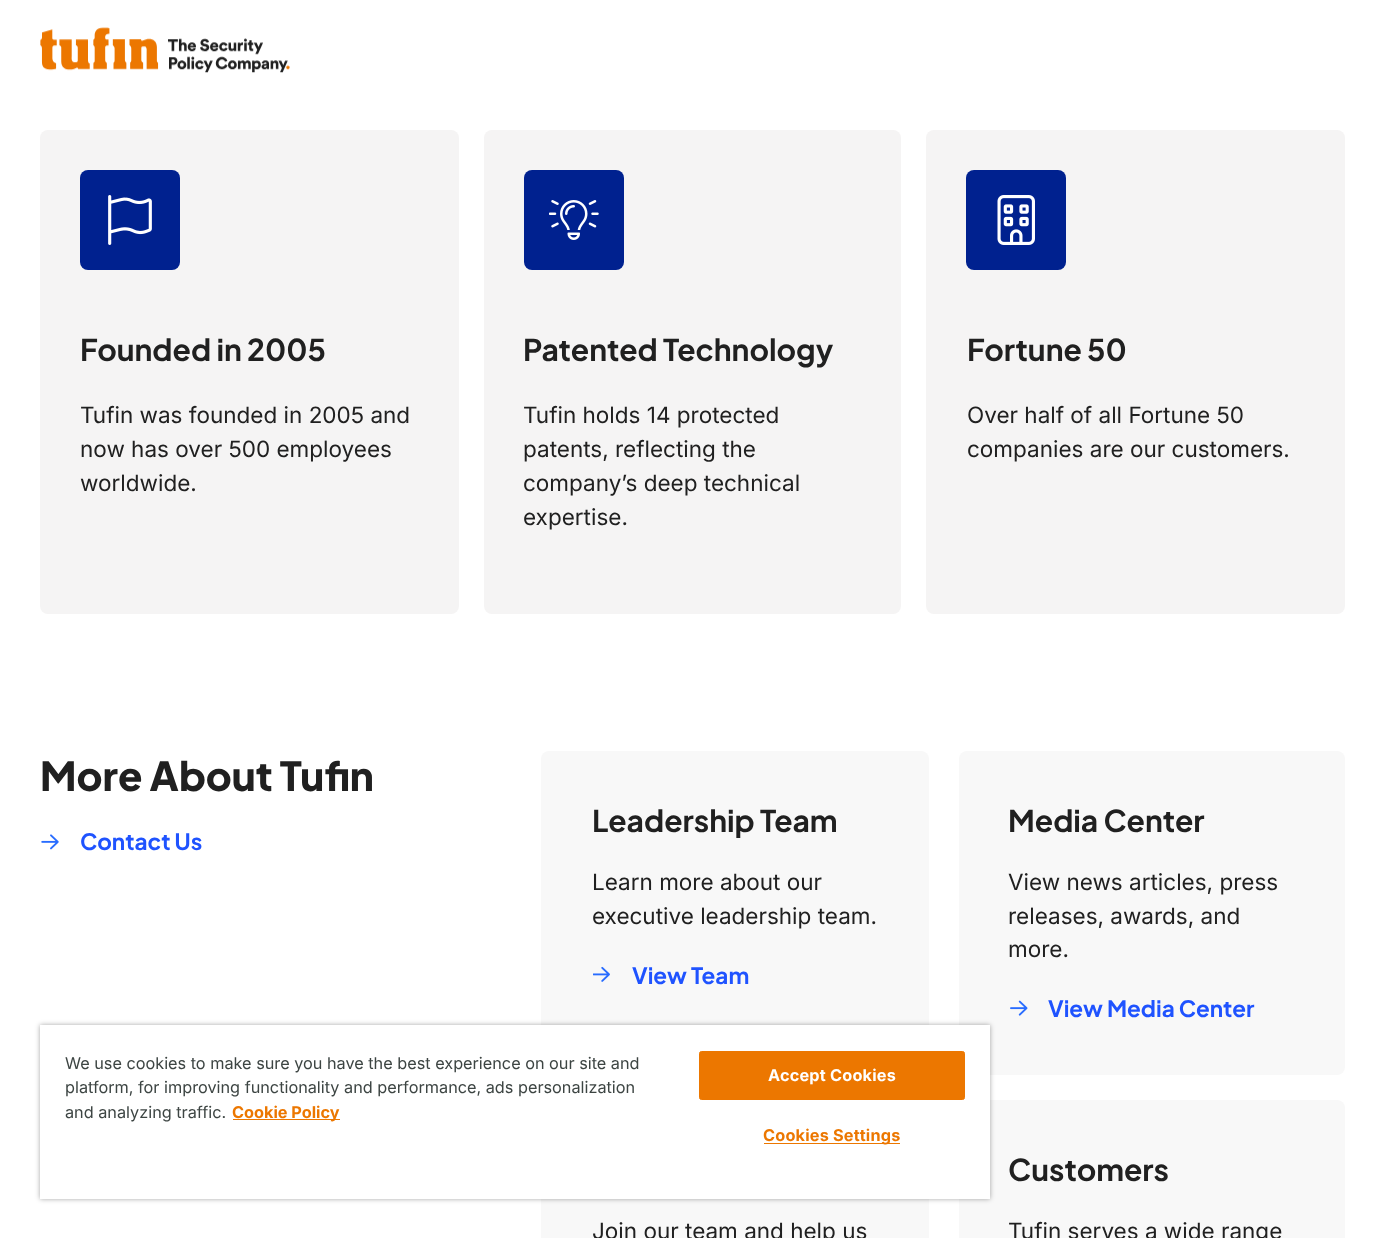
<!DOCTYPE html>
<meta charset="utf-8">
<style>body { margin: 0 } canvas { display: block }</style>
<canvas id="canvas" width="1384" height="1238"></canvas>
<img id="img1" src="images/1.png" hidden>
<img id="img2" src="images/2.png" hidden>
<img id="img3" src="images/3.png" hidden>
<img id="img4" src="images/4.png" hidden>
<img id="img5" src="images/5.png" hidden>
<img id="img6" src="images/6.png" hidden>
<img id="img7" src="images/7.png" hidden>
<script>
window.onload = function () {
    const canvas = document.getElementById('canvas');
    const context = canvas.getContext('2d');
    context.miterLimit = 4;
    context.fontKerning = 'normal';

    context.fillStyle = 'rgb(255, 255, 255)';
    context.fillRect(0, 0, 1384, 1238);
    context.drawImage(document.getElementById('img1'), 40, 27, 250, 46);
    context.fillStyle = 'rgb(245, 244, 244)';
    context.beginPath();
    context.roundRect(40, 130, 419, 484, 8);
    context.fill();
    context.fillStyle = 'rgb(0, 33, 143)';
    context.beginPath();
    context.roundRect(80, 170, 100, 100, 8);
    context.fill();
    context.drawImage(document.getElementById('img2'), 108, 195, 44, 50);
    context.fillStyle = 'rgb(245, 244, 244)';
    context.beginPath();
    context.roundRect(484, 130, 417, 484, 8);
    context.fill();
    context.fillStyle = 'rgb(0, 33, 143)';
    context.beginPath();
    context.roundRect(524, 170, 100, 100, 8);
    context.fill();
    context.drawImage(document.getElementById('img3'), 549, 200, 50, 40);
    context.fillStyle = 'rgb(245, 244, 244)';
    context.beginPath();
    context.roundRect(926, 130, 419, 484, 8);
    context.fill();
    context.fillStyle = 'rgb(0, 33, 143)';
    context.beginPath();
    context.roundRect(966, 170, 100, 100, 8);
    context.fill();
    context.drawImage(document.getElementById('img4'), 997, 195, 38, 50);
    context.drawImage(document.getElementById('img5'), 41, 834, 18, 16);
    context.fillStyle = 'rgb(248, 248, 248)';
    context.beginPath();
    context.roundRect(541, 751, 388, 324, 8);
    context.fill();
    context.drawImage(document.getElementById('img6'), 593, 966, 17, 16);
    context.beginPath();
    context.roundRect(959, 751, 386, 324, 8);
    context.fill();
    context.drawImage(document.getElementById('img7'), 1010, 1000, 18, 16);
    context.fillRect(541, 1199, 388, 39);
    context.beginPath();
    context.roundRect(959, 1100, 386, 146, 8);
    context.fill();
    context.fillStyle = 'rgba(0, 0, 0, 0.35)';
    context.filter = 'blur(2.5px)';
    context.beginPath();
    context.rect(40, 1025, 950, 174);
    context.fill();
    context.filter = 'none';
    context.fillStyle = 'rgb(255, 255, 255)';
    context.fillRect(40, 1025, 950, 174);
    context.fillStyle = 'rgb(236, 119, 0)';
    context.fillRect(233, 1119, 107, 1);
    context.beginPath();
    context.roundRect(699.5, 1051.5, 265, 48, 2);
    context.fill();
    context.strokeStyle = 'rgb(236, 119, 0)';
    context.stroke();
    context.fillRect(764, 1143, 136, 1);
    context.font = 'bold 30px Plus Jakarta Sans';
    context.fillStyle = 'rgb(32, 32, 32)';
    context.fillText('Founded in 2005', 80, 361);
    context.font = '22.5px Inter';
    context.fillText('Tufin was founded in 2005 and', 80, 423);
    context.fillText('now has over 500 employees', 80, 457);
    context.fillText('worldwide.', 80, 491);
    context.font = 'bold 30px Plus Jakarta Sans';
    context.fillText('Patented Technology', 523, 361);
    context.font = '22.5px Inter';
    context.fillText('Tufin holds 14 protected', 523, 423);
    context.fillText('patents, reflecting the', 523, 457);
    context.fillText('company’s deep technical', 523, 491);
    context.fillText('expertise.', 523, 525);
    context.font = 'bold 30px Plus Jakarta Sans';
    context.fillText('Fortune 50', 967, 361);
    context.font = '22.5px Inter';
    context.fillText('Over half of all Fortune 50', 967, 423);
    context.fillText('companies are our customers.', 967, 457);
    context.font = '800 40px Plus Jakarta Sans';
    context.fillText('More About Tufin', 40, 791);
    context.font = 'bold 22.5px Plus Jakarta Sans';
    context.fillStyle = 'rgb(31, 83, 255)';
    context.fillText('Contact Us', 80, 850);
    context.font = 'bold 30px Plus Jakarta Sans';
    context.fillStyle = 'rgb(32, 32, 32)';
    context.fillText('Leadership Team', 592, 832);
    context.font = '22.5px Inter';
    context.fillText('Learn more about our', 592, 890);
    context.fillText('executive leadership team.', 592, 924);
    context.font = 'bold 22.5px Plus Jakarta Sans';
    context.fillStyle = 'rgb(31, 83, 255)';
    context.fillText('View Team', 632, 984);
    context.font = 'bold 30px Plus Jakarta Sans';
    context.fillStyle = 'rgb(32, 32, 32)';
    context.fillText('Media Center', 1008, 832);
    context.font = '22.5px Inter';
    context.fillText('View news articles, press', 1008, 890);
    context.fillText('releases, awards, and', 1008, 924);
    context.fillText('more.', 1008, 957);
    context.font = 'bold 22.5px Plus Jakarta Sans';
    context.fillStyle = 'rgb(31, 83, 255)';
    context.fillText('View Media Center', 1048, 1017);
    context.font = '22.5px Inter';
    context.fillStyle = 'rgb(32, 32, 32)';
    context.fillText('Join our team and help us', 592, 1239);
    context.font = 'bold 30px Plus Jakarta Sans';
    context.fillText('Customers', 1008, 1181);
    context.font = '22.5px Inter';
    context.fillText('Tufin serves a wide range', 1008, 1239);
    context.font = '16.25px Inter';
    context.fillStyle = 'rgb(61, 69, 67)';
    context.fillText('We use cookies to make sure you have the best experience on our site and', 65, 1069);
    context.fillText('platform, for improving functionality and performance, ads personalization', 65, 1093);
    context.fillText('and analyzing traffic.', 65, 1118);
    context.font = 'bold 16.25px Inter';
    context.fillStyle = 'rgb(236, 119, 0)';
    context.fillText('Cookie Policy', 232, 1118);
    context.letterSpacing = '0.2px';
    context.fillStyle = 'rgb(255, 255, 255)';
    context.fillText('Accept Cookies', 768, 1081);
    context.fillStyle = 'rgb(236, 119, 0)';
    context.fillText('Cookies Settings', 763, 1141);
};
</script>
